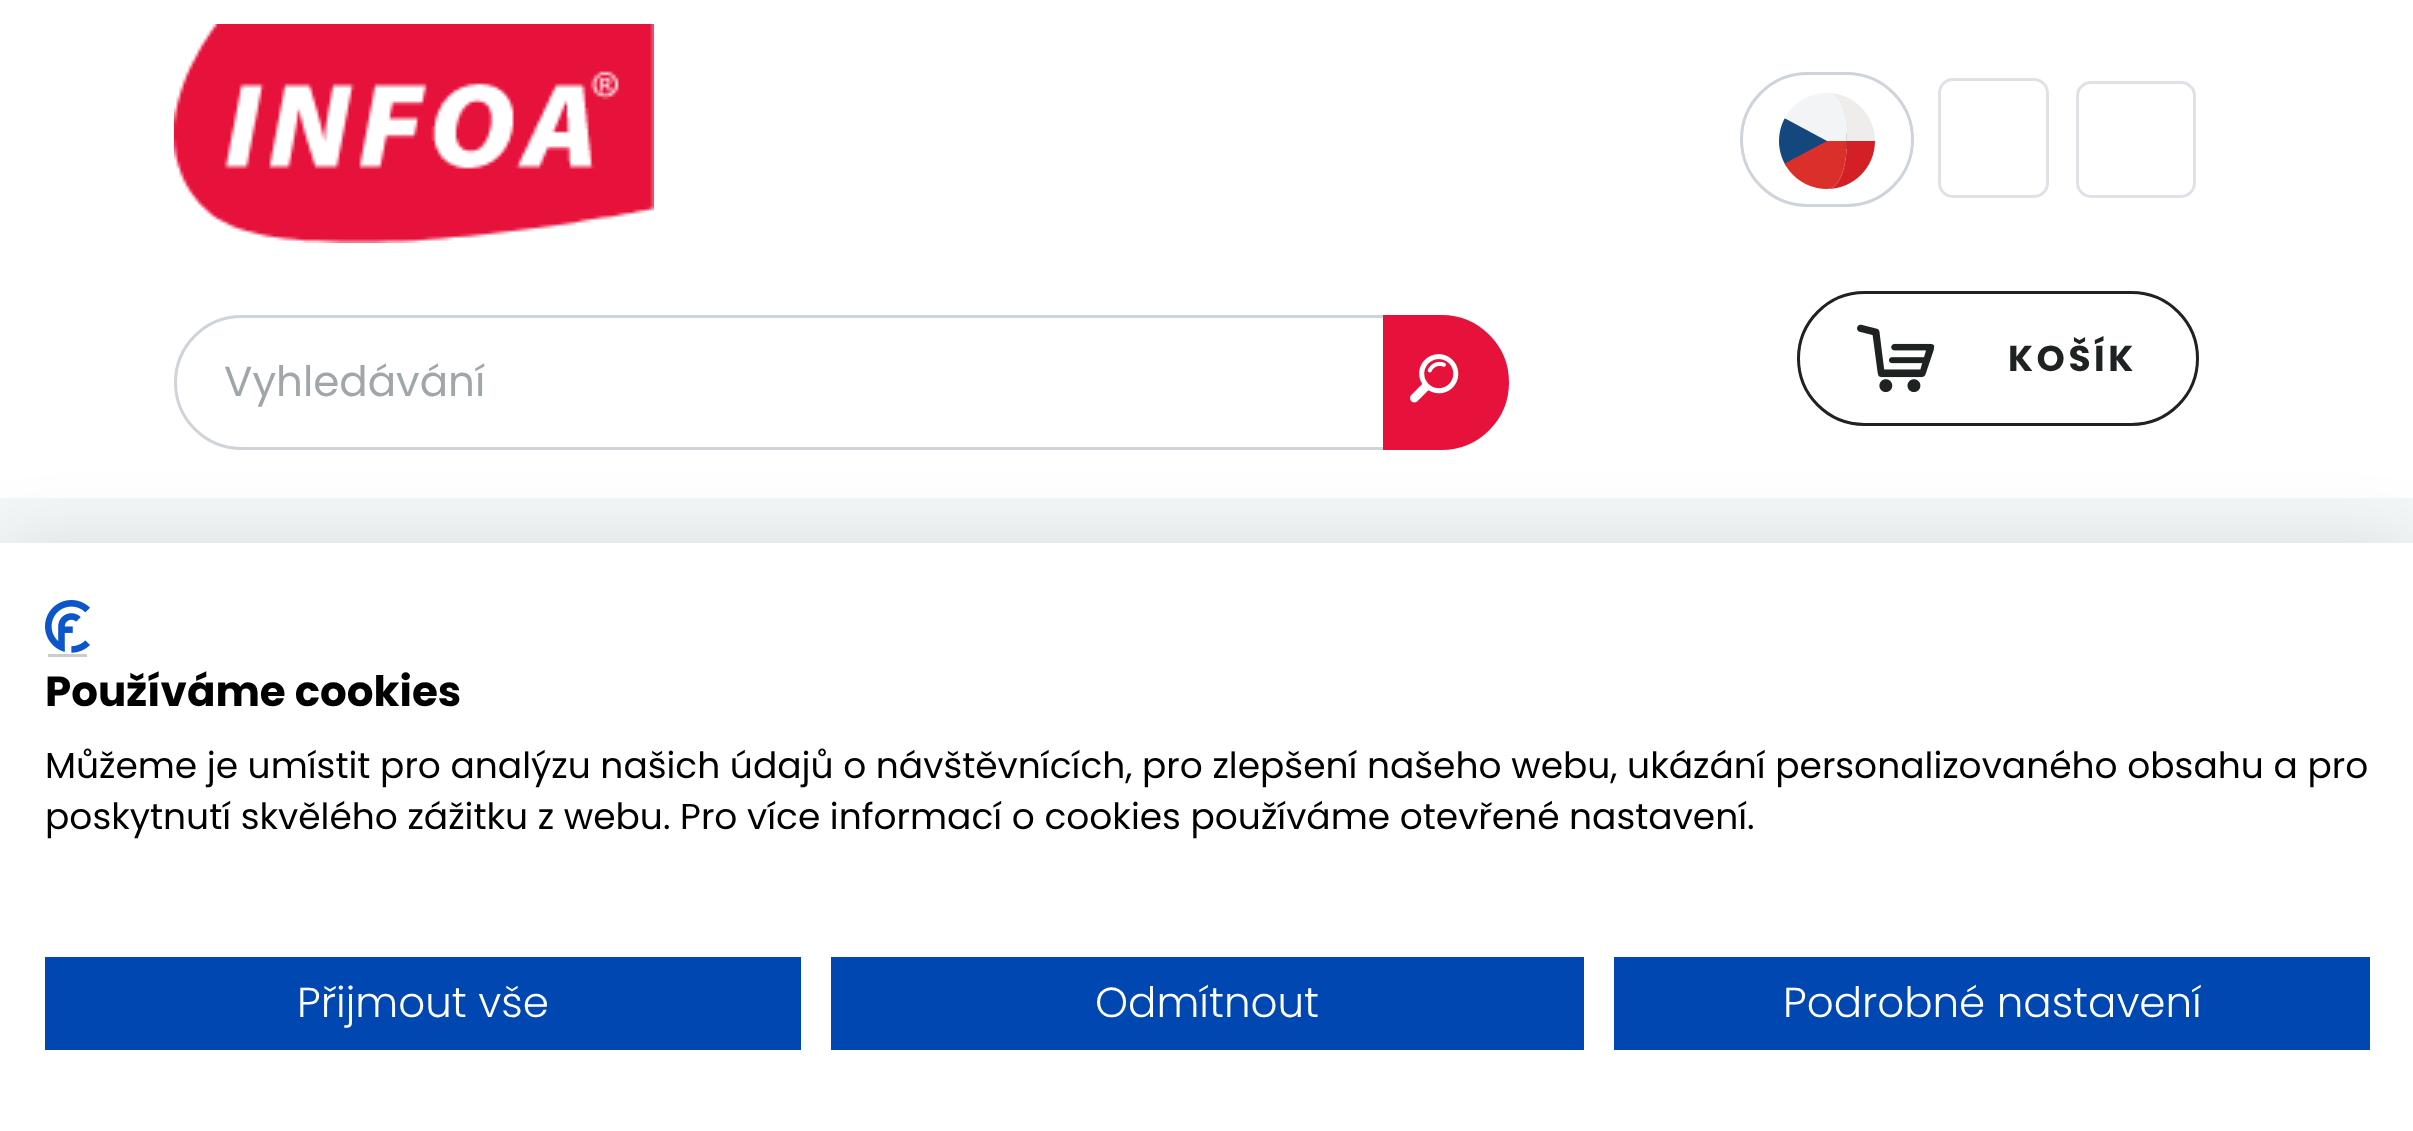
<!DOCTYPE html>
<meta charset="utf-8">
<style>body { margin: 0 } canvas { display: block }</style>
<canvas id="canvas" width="2413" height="1131"></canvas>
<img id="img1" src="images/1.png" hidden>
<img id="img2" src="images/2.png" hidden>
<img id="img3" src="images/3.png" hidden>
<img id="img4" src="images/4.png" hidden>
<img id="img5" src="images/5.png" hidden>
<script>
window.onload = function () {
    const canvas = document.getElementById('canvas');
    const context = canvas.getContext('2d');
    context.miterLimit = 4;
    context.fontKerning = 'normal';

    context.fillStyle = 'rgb(255, 255, 255)';
    context.fillRect(0, 0, 2413, 1131);
    context.drawImage(document.getElementById('img1'), 174, 24, 480, 219);
    context.beginPath();
    context.roundRect(1741.5, 73.5, 171, 132, 66);
    context.strokeStyle = 'rgb(206, 212, 218)';
    context.lineWidth = 3;
    context.stroke();
    context.drawImage(document.getElementById('img2'), 1779, 93, 96, 96);
    context.beginPath();
    context.roundRect(1939.5, 79.5, 108, 117, 13.5);
    context.strokeStyle = 'rgb(222, 226, 230)';
    context.stroke();
    context.beginPath();
    context.roundRect(2077.5, 82.5, 117, 114, 13.5);
    context.stroke();
    context.beginPath();
    context.roundRect(1798.5, 292.5, 399, 132, 66);
    context.strokeStyle = 'rgb(30, 34, 34)';
    context.stroke();
    context.drawImage(document.getElementById('img3'), 1857, 324, 78, 69);
    context.beginPath();
    context.roundRect(175.5, 316.5, 1209, 132, [66, 0, 0, 66]);
    context.strokeStyle = 'rgb(206, 212, 218)';
    context.stroke();
    context.fillStyle = 'rgb(230, 18, 59)';
    context.beginPath();
    context.roundRect(1384.5, 316.5, 123, 132, [0, 66, 66, 0]);
    context.fill();
    context.strokeStyle = 'rgb(230, 18, 59)';
    context.stroke();
    context.drawImage(document.getElementById('img4'), 1410, 354, 49, 49);
    context.fillStyle = 'rgb(243, 247, 248)';
    context.fillRect(0, 498, 2413, 45);
    context.fillStyle = 'rgba(0, 0, 0, 0.1)';
    context.filter = 'blur(36px)';
    context.beginPath();
    context.rect(0, 543, 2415, 588);
    context.fill();
    context.filter = 'none';
    context.fillStyle = 'rgb(255, 255, 255)';
    context.fillRect(0, 543, 2413, 588);
    context.fillStyle = 'rgb(204, 204, 204)';
    context.fillRect(48, 654, 39, 3);
    context.drawImage(document.getElementById('img5'), 45, 600, 45, 53);
    context.fillStyle = 'rgb(0, 71, 178)';
    context.fillRect(45, 957, 756, 93);
    context.fillRect(831, 957, 753, 93);
    context.fillRect(1614, 957, 756, 93);
    context.letterSpacing = '3.5px';
    context.font = 'bold 36px Poppins';
    context.fillStyle = 'rgb(30, 34, 34)';
    context.fillText('KOŠÍK', 2008, 371);
    context.letterSpacing = '0px';
    context.font = '42px Poppins';
    context.fillStyle = 'rgb(159, 167, 170)';
    context.fillText('Vyhledávání', 224, 396);
    context.font = 'bold 42px Poppins';
    context.fillStyle = 'rgb(0, 0, 0)';
    context.fillText('Používáme cookies', 45, 706);
    context.font = '36px Poppins';
    context.fillText('Můžeme je umístit pro analýzu našich údajů o návštěvnících, pro zlepšení našeho webu, ukázání personalizovaného obsahu a pro', 45, 778);
    context.fillText('poskytnutí skvělého zážitku z webu. Pro více informací o cookies používáme otevřené nastavení.', 45, 829);
    context.font = '300 42px Poppins';
    context.fillStyle = 'rgb(255, 255, 255)';
    context.fillText('Přijmout vše', 297, 1017);
    context.fillText('Odmítnout', 1095, 1017);
    context.fillText('Podrobné nastavení', 1783, 1017);
};
</script>
